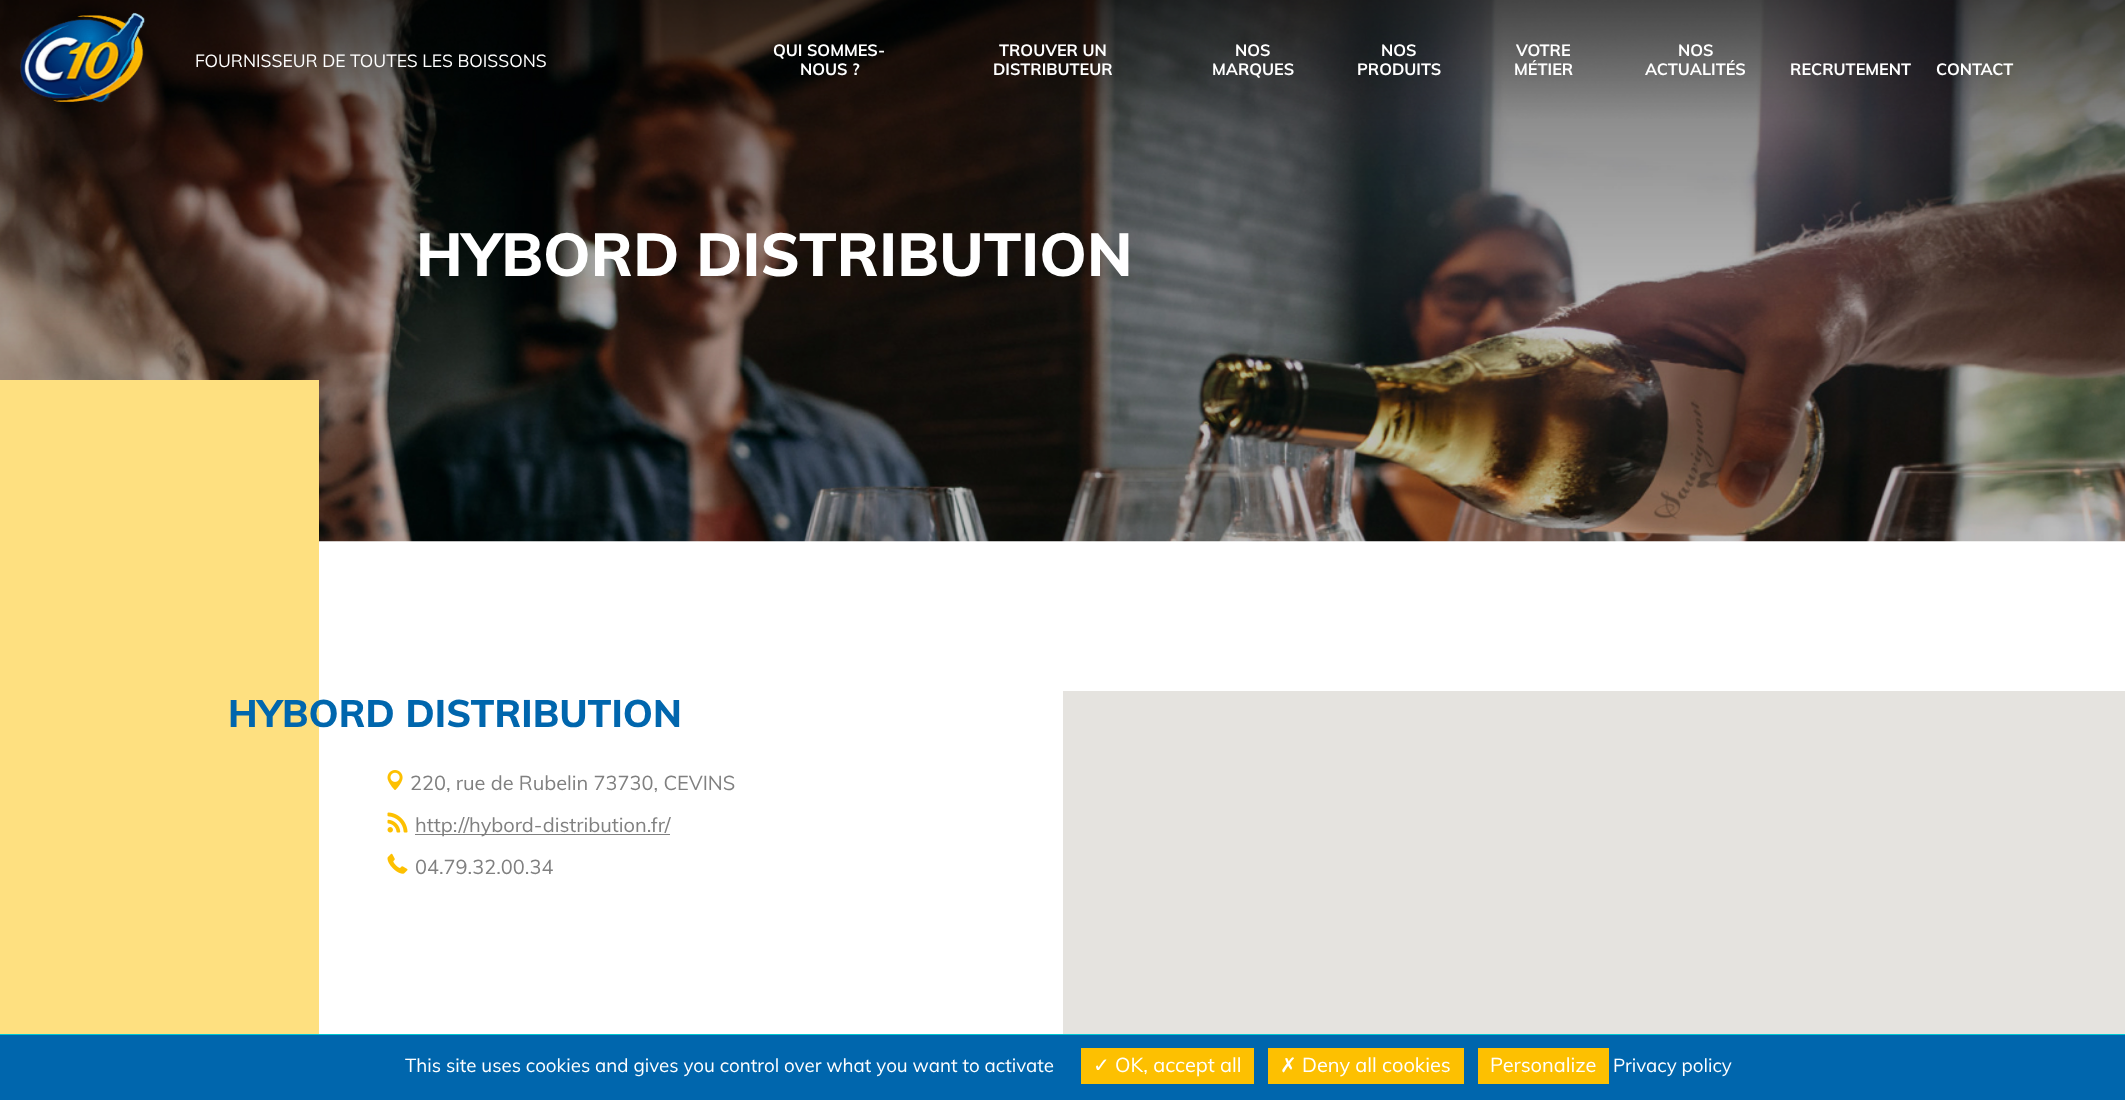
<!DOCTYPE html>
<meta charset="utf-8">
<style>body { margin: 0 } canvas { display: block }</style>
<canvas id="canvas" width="2125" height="1100"></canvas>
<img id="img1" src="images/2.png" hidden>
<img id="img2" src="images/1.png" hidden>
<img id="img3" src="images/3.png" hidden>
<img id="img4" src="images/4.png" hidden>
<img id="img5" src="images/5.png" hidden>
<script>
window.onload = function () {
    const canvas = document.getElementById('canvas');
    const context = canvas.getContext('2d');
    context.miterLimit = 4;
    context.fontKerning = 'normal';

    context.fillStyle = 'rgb(255, 255, 255)';
    context.fillRect(0, 0, 2125, 1100);
    context.drawImage(document.getElementById('img1'), 0, 0, 2125, 542);
    context.drawImage(document.getElementById('img2'), 20, 12, 125, 91);
    context.fillStyle = 'rgb(254, 224, 128)';
    context.fillRect(0, 380, 319, 654);
    context.drawImage(document.getElementById('img3'), 387, 770, 16, 20);
    context.drawImage(document.getElementById('img4'), 387, 812, 21, 21);
    context.fillStyle = 'rgb(128, 128, 128)';
    context.fillRect(415, 834, 255, 1);
    context.drawImage(document.getElementById('img5'), 387, 853, 21, 21);
    context.fillStyle = 'rgb(229, 227, 223)';
    context.fillRect(1063, 691, 1062, 343);
    context.fillStyle = 'rgb(0, 102, 173)';
    context.fillRect(0, 1035, 2125, 65);
    context.fillStyle = 'rgb(1, 199, 207)';
    context.fillRect(0, 1034, 2125, 1);
    context.fillStyle = 'rgb(253, 192, 1)';
    context.fillRect(1081, 1048, 173, 36);
    context.fillRect(1268, 1048, 196, 36);
    context.fillRect(1478, 1048, 131, 36);
    context.font = '17.5px Muli';
    context.fillStyle = 'rgb(255, 255, 255)';
    context.fillText('FOURNISSEUR DE TOUTES LES BOISSONS', 195, 67);
    context.font = 'bold 16.25px Muli';
    context.fillText('QUI SOMMES-', 773, 56);
    context.fillText('NOUS ?', 800, 75);
    context.fillText('TROUVER UN', 999, 56);
    context.fillText('DISTRIBUTEUR', 993, 75);
    context.fillText('NOS', 1235, 56);
    context.fillText('MARQUES', 1212, 75);
    context.fillText('NOS', 1381, 56);
    context.fillText('PRODUITS', 1357, 75);
    context.fillText('VOTRE', 1516, 56);
    context.fillText('MÉTIER', 1514, 75);
    context.fillText('NOS', 1678, 56);
    context.fillText('ACTUALITÉS', 1645, 75);
    context.fillText('RECRUTEMENT', 1790, 75);
    context.fillText('CONTACT', 1936, 75);
    context.font = '800 60px Muli';
    context.fillText('HYBORD DISTRIBUTION', 416, 276);
    context.font = '800 38px Muli';
    context.fillStyle = 'rgb(0, 102, 173)';
    context.fillText('HYBORD DISTRIBUTION', 228, 727);
    context.font = '20px Muli';
    context.fillStyle = 'rgb(128, 128, 128)';
    context.fillText('220, rue de Rubelin 73730, CEVINS', 410, 790);
    context.fillText('http://hybord-distribution.fr/', 415, 832);
    context.fillText('04.79.32.00.34', 415, 874);
    context.font = '18.75px Muli';
    context.fillStyle = 'rgb(255, 255, 255)';
    context.fillText('This site uses cookies and gives you control over what you want to activate', 405, 1072);
    context.font = '20px DejaVu Sans';
    context.fillText('✓', 1093, 1072);
    context.font = '20px Muli';
    context.fillText('OK, accept all', 1115, 1072);
    context.font = '20px DejaVu Sans';
    context.fillText('✗', 1280, 1072);
    context.font = '20px Muli';
    context.fillText('Deny all cookies', 1302, 1072);
    context.fillText('Personalize', 1490, 1072);
    context.font = '18.75px Muli';
    context.fillText('Privacy policy', 1613, 1072);
};
</script>
